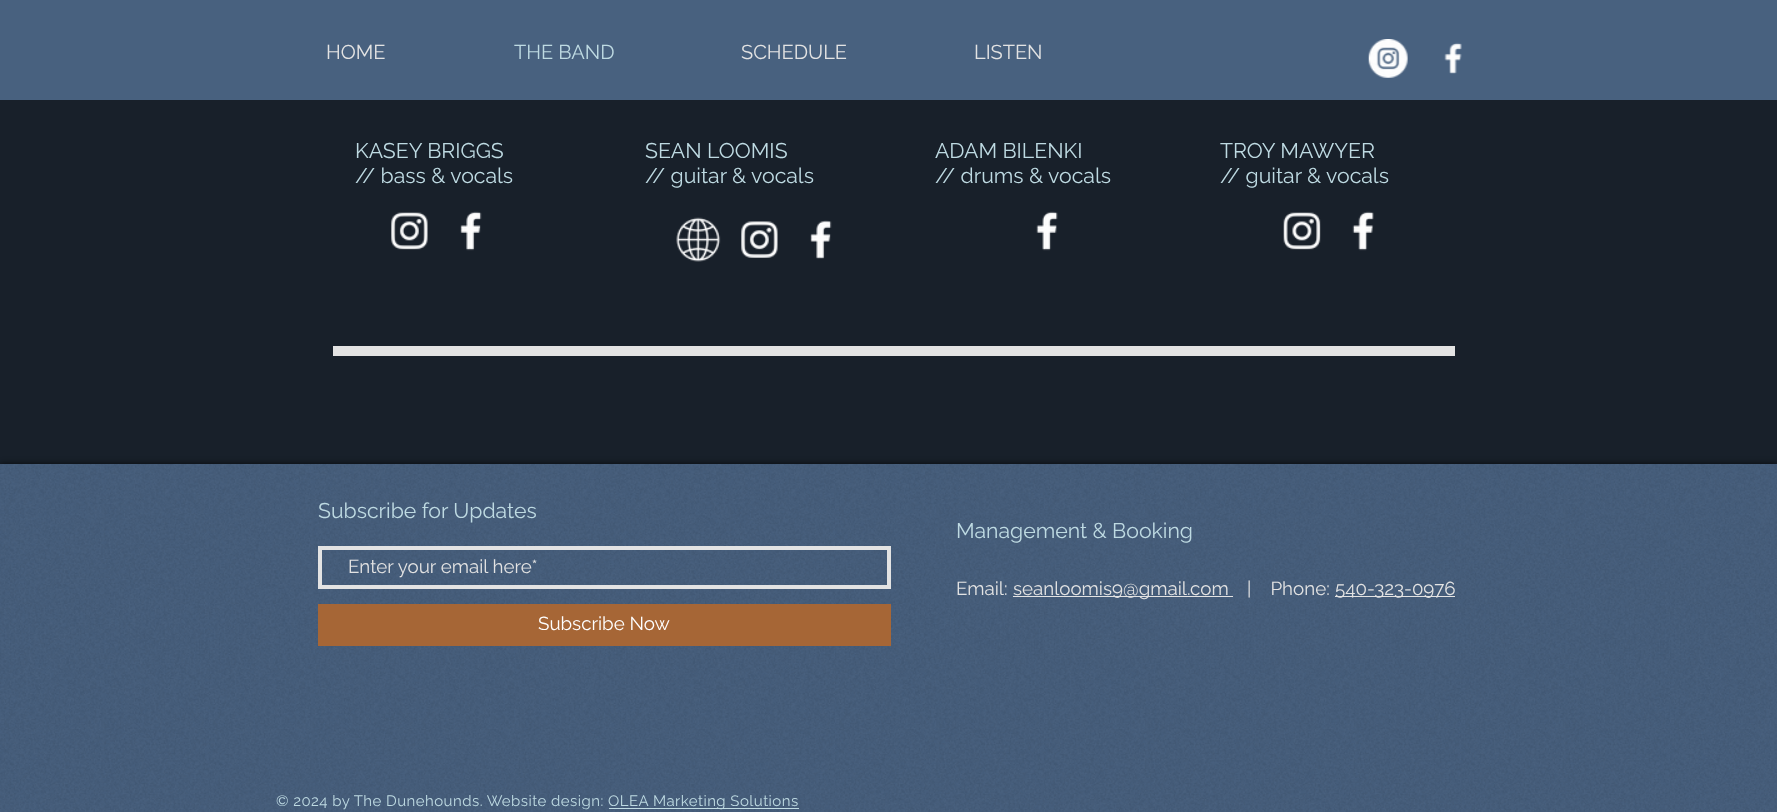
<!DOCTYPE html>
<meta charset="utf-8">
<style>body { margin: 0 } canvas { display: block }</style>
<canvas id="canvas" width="1777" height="812"></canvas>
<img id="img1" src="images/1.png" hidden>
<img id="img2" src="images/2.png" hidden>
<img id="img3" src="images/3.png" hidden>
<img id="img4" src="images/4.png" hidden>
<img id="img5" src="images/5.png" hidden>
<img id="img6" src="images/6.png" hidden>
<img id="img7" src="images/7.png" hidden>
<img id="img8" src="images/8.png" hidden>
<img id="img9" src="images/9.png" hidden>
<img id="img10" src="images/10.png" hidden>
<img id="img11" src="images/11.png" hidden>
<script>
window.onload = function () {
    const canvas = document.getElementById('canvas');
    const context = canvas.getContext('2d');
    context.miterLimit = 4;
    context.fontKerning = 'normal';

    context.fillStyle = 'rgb(24, 32, 42)';
    context.fillRect(0, 0, 1777, 812);
    context.fillStyle = 'rgb(72, 97, 127)';
    context.fillRect(0, 0, 1777, 100);
    context.drawImage(document.getElementById('img1'), 1368, 39, 40, 39);
    context.drawImage(document.getElementById('img2'), 1444, 42, 18, 32);
    context.drawImage(document.getElementById('img3'), 391, 212, 37, 38);
    context.drawImage(document.getElementById('img4'), 460, 211, 22, 40);
    context.drawImage(document.getElementById('img5'), 676, 217, 45, 45);
    context.drawImage(document.getElementById('img6'), 741, 221, 37, 37);
    context.drawImage(document.getElementById('img7'), 810, 220, 22, 39);
    context.drawImage(document.getElementById('img8'), 1036, 211, 22, 40);
    context.drawImage(document.getElementById('img9'), 1283, 212, 38, 38);
    context.drawImage(document.getElementById('img10'), 1352, 211, 22, 40);
    context.fillStyle = 'rgb(227, 227, 227)';
    context.fillRect(333, 346, 1122, 10);
    context.fillStyle = 'rgba(0, 0, 0, 0.7)';
    context.filter = 'blur(3px)';
    context.beginPath();
    context.rect(0, 464, 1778, 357);
    context.fill();
    context.filter = 'none';
    context.fillStyle = 'rgb(70, 94, 124)';
    context.fillRect(0, 464, 1777, 348);
    context.drawImage(document.getElementById('img11'), 0, 464, 1777, 348);
    context.strokeStyle = 'rgb(227, 227, 227)';
    context.lineWidth = 4;
    context.strokeRect(320, 548, 569, 39);
    context.fillStyle = 'rgb(166, 102, 54)';
    context.fillRect(318, 604, 573, 42);
    context.fillStyle = 'rgb(227, 227, 227)';
    context.fillRect(1013, 596, 220, 1);
    context.fillRect(1335, 596, 120, 1);
    context.fillStyle = 'rgb(192, 219, 227)';
    context.fillRect(609, 808, 190, 1);
    context.font = '20px Raleway';
    context.fillStyle = 'rgb(227, 227, 227)';
    context.fillText('HOME', 326, 59);
    context.fillStyle = 'rgb(190, 218, 226)';
    context.fillText('THE BAND', 514, 59);
    context.fillStyle = 'rgb(227, 227, 227)';
    context.fillText('SCHEDULE', 741, 59);
    context.fillText('LISTEN', 974, 59);
    context.font = '21.25px Raleway';
    context.fillStyle = 'rgb(190, 218, 226)';
    context.fillText('KASEY BRIGGS', 355, 158);
    context.fillText('// bass & vocals', 355, 183);
    context.fillText('SEAN LOOMIS', 645, 158);
    context.fillText('// guitar & vocals', 645, 183);
    context.fillText('ADAM BILENKI', 935, 158);
    context.fillText('// drums & vocals', 935, 183);
    context.fillText('TROY MAWYER', 1220, 158);
    context.fillText('// guitar & vocals', 1220, 183);
    context.fillText('Subscribe for Updates', 318, 518);
    context.font = '18.75px Raleway';
    context.fillStyle = 'rgb(227, 227, 227)';
    context.fillText('Enter your email here*', 348, 573);
    context.fillStyle = 'rgb(255, 255, 255)';
    context.fillText('Subscribe Now', 538, 630);
    context.font = '21.25px Raleway';
    context.fillStyle = 'rgb(190, 218, 226)';
    context.fillText('Management & Booking', 956, 538);
    context.font = '18.75px Raleway';
    context.fillStyle = 'rgb(227, 227, 227)';
    context.fillText('Email:', 956, 595);
    context.fillText('seanloomis9@gmail.com', 1013, 595);
    context.fillText('|    Phone:', 1247, 595);
    context.fillText('540-323-0976', 1335, 595);
    context.letterSpacing = '0.45px';
    context.font = '15px Raleway';
    context.fillStyle = 'rgb(190, 218, 226)';
    context.fillText('© 2024 by The Dunehounds. Website design:', 276, 806);
    context.fillText('OLEA Marketing Solutions', 608, 806);
};
</script>
